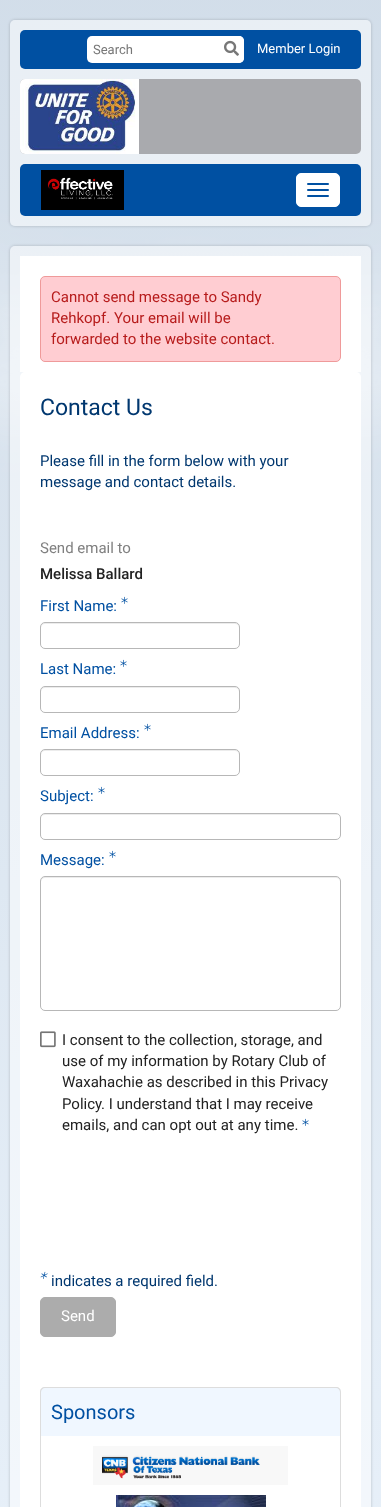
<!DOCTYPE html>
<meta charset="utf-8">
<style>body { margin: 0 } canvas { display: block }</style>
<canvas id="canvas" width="381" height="1507"></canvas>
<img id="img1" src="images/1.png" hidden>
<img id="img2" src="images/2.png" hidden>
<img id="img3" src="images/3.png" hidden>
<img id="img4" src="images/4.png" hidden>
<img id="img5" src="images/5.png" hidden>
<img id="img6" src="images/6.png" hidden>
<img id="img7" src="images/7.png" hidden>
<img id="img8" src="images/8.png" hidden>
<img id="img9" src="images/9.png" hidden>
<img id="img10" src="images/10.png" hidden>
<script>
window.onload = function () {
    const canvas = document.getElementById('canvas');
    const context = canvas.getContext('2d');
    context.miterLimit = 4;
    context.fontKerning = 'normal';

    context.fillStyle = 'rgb(255, 255, 255)';
    context.fillRect(0, 0, 381, 1507);
    context.drawImage(document.getElementById('img1'), 0, 0, 381, 1507);
    context.save();
    context.beginPath();
    context.moveTo(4, 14);
    context.lineTo(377, 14);
    context.lineTo(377, 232);
    context.lineTo(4, 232);
    context.closePath();
    context.moveTo(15, 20);
    context.lineTo(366, 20);
    context.bezierCurveTo(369, 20, 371, 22, 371, 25);
    context.lineTo(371, 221);
    context.bezierCurveTo(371, 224, 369, 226, 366, 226);
    context.lineTo(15, 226);
    context.bezierCurveTo(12, 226, 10, 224, 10, 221);
    context.lineTo(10, 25);
    context.bezierCurveTo(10, 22, 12, 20, 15, 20);
    context.closePath();
    context.clip('evenodd');
    context.fillStyle = 'rgba(0, 0, 0, 0.2)';
    context.filter = 'blur(1.5px)';
    context.beginPath();
    context.roundRect(10, 20, 361, 206, 5);
    context.fill();
    context.filter = 'none';
    context.restore();
    context.fillStyle = 'rgba(255, 255, 255, 0.5)';
    context.beginPath();
    context.roundRect(10, 20, 361, 206, 5);
    context.fill();
    context.fillStyle = 'rgb(0, 80, 162)';
    context.beginPath();
    context.roundRect(20, 30, 341, 39, 5);
    context.fill();
    context.fillStyle = 'rgb(255, 255, 255)';
    context.beginPath();
    context.roundRect(87, 36, 157, 27, 5);
    context.fill();
    context.beginPath();
    context.roundRect(219, 36, 25, 27, 5);
    context.fill();
    context.drawImage(document.getElementById('img2'), 224, 40, 15, 16);
    context.drawImage(document.getElementById('img3'), 20, 79, 341, 75);
    context.drawImage(document.getElementById('img4'), 20, 79, 119, 75);
    context.fillStyle = 'rgb(0, 80, 162)';
    context.beginPath();
    context.roundRect(20, 164, 341, 52, 5);
    context.fill();
    context.drawImage(document.getElementById('img5'), 41, 170, 83, 40);
    context.fillStyle = 'rgb(255, 255, 255)';
    context.beginPath();
    context.roundRect(296.5, 173.5, 43, 33, 4.5);
    context.fill();
    context.strokeStyle = 'rgb(255, 255, 255)';
    context.stroke();
    context.fillStyle = 'rgb(0, 80, 162)';
    context.beginPath();
    context.roundRect(307, 183, 22, 2, 1);
    context.fill();
    context.beginPath();
    context.roundRect(307, 189, 22, 2, 1);
    context.fill();
    context.beginPath();
    context.roundRect(307, 195, 22, 2, 1);
    context.fill();
    context.save();
    context.beginPath();
    context.moveTo(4, 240);
    context.lineTo(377, 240);
    context.lineTo(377, 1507);
    context.lineTo(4, 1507);
    context.closePath();
    context.moveTo(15, 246);
    context.lineTo(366, 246);
    context.bezierCurveTo(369, 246, 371, 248, 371, 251);
    context.lineTo(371, 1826);
    context.bezierCurveTo(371, 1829, 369, 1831, 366, 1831);
    context.lineTo(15, 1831);
    context.bezierCurveTo(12, 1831, 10, 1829, 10, 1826);
    context.lineTo(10, 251);
    context.bezierCurveTo(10, 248, 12, 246, 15, 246);
    context.closePath();
    context.clip('evenodd');
    context.fillStyle = 'rgba(0, 0, 0, 0.2)';
    context.filter = 'blur(1.5px)';
    context.beginPath();
    context.roundRect(10, 246, 361, 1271, 5);
    context.fill();
    context.filter = 'none';
    context.restore();
    context.fillStyle = 'rgba(255, 255, 255, 0.5)';
    context.beginPath();
    context.roundRect(10, 246, 361, 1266, 5);
    context.fill();
    context.fillStyle = 'rgb(255, 255, 255)';
    context.fillRect(20, 256, 341, 116);
    context.fillStyle = 'rgb(255, 205, 210)';
    context.beginPath();
    context.roundRect(40.5, 276.5, 300, 85, 4.5);
    context.fill();
    context.strokeStyle = 'rgb(239, 154, 154)';
    context.stroke();
    context.fillStyle = 'rgb(255, 255, 255)';
    context.beginPath();
    context.roundRect(20, 372, 341, 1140, 5);
    context.fill();
    context.drawImage(document.getElementById('img6'), 121, 596, 7, 8);
    context.fillStyle = 'rgb(236, 236, 236)';
    context.beginPath();
    context.moveTo(45, 624);
    context.lineTo(235, 624);
    context.bezierCurveTo(237, 624, 239, 626, 239, 628);
    context.lineTo(239, 627);
    context.bezierCurveTo(239, 625, 237, 623, 235, 623);
    context.lineTo(45, 623);
    context.bezierCurveTo(43, 623, 41, 625, 41, 627);
    context.lineTo(41, 628);
    context.bezierCurveTo(41, 626, 43, 624, 45, 624);
    context.closePath();
    context.fill();
    context.beginPath();
    context.roundRect(40.5, 622.5, 199, 26, 4.5);
    context.strokeStyle = 'rgb(183, 183, 183)';
    context.stroke();
    context.drawImage(document.getElementById('img6'), 120, 659, 7, 8);
    context.beginPath();
    context.moveTo(45, 688);
    context.lineTo(235, 688);
    context.bezierCurveTo(237, 688, 239, 690, 239, 692);
    context.lineTo(239, 691);
    context.bezierCurveTo(239, 689, 237, 687, 235, 687);
    context.lineTo(45, 687);
    context.bezierCurveTo(43, 687, 41, 689, 41, 691);
    context.lineTo(41, 692);
    context.bezierCurveTo(41, 690, 43, 688, 45, 688);
    context.closePath();
    context.fill();
    context.beginPath();
    context.roundRect(40.5, 686.5, 199, 26, 4.5);
    context.stroke();
    context.drawImage(document.getElementById('img6'), 144, 723, 7, 8);
    context.beginPath();
    context.moveTo(45, 751);
    context.lineTo(235, 751);
    context.bezierCurveTo(237, 751, 239, 753, 239, 755);
    context.lineTo(239, 754);
    context.bezierCurveTo(239, 752, 237, 750, 235, 750);
    context.lineTo(45, 750);
    context.bezierCurveTo(43, 750, 41, 752, 41, 754);
    context.lineTo(41, 755);
    context.bezierCurveTo(41, 753, 43, 751, 45, 751);
    context.closePath();
    context.fill();
    context.beginPath();
    context.roundRect(40.5, 749.5, 199, 26, 4.5);
    context.stroke();
    context.drawImage(document.getElementById('img6'), 98, 786, 7, 8);
    context.beginPath();
    context.moveTo(45, 815);
    context.lineTo(338, 815);
    context.bezierCurveTo(339, 815, 340, 816, 340, 818);
    context.bezierCurveTo(340, 816, 338, 814, 336, 814);
    context.lineTo(45, 814);
    context.bezierCurveTo(42, 814, 41, 816, 41, 818);
    context.bezierCurveTo(41, 816, 43, 815, 45, 815);
    context.closePath();
    context.fill();
    context.beginPath();
    context.roundRect(40.5, 813.5, 300, 26, 4.5);
    context.stroke();
    context.drawImage(document.getElementById('img6'), 109, 850, 7, 8);
    context.beginPath();
    context.moveTo(45, 878);
    context.lineTo(336, 878);
    context.bezierCurveTo(338, 878, 340, 880, 340, 882);
    context.bezierCurveTo(340, 879, 339, 877, 336, 877);
    context.lineTo(45, 877);
    context.bezierCurveTo(42, 877, 41, 879, 41, 882);
    context.bezierCurveTo(41, 880, 43, 878, 45, 878);
    context.closePath();
    context.fill();
    context.beginPath();
    context.roundRect(40.5, 876.5, 300, 134, 4.5);
    context.stroke();
    context.drawImage(document.getElementById('img7'), 40, 1031, 16, 17);
    context.drawImage(document.getElementById('img6'), 302, 1118, 7, 8);
    context.drawImage(document.getElementById('img8'), 40, 1271, 8, 8);
    context.fillStyle = 'rgb(172, 172, 172)';
    context.beginPath();
    context.roundRect(40.5, 1297.5, 75, 39, 4.5);
    context.fill();
    context.strokeStyle = 'rgb(172, 172, 172)';
    context.stroke();
    context.fillStyle = 'rgb(240, 247, 255)';
    context.beginPath();
    context.roundRect(40, 1387, 301, 49, [5, 5, 0, 0]);
    context.fill();
    context.fillStyle = 'rgb(221, 221, 221)';
    context.beginPath();
    context.moveTo(45, 1387);
    context.lineTo(336, 1387);
    context.bezierCurveTo(339, 1387, 341, 1389, 341, 1392);
    context.lineTo(341, 1436);
    context.lineTo(40, 1436);
    context.lineTo(40, 1392);
    context.bezierCurveTo(40, 1389, 42, 1387, 45, 1387);
    context.closePath();
    context.moveTo(45, 1388);
    context.lineTo(336, 1388);
    context.bezierCurveTo(338, 1388, 340, 1390, 340, 1392);
    context.lineTo(340, 1436);
    context.lineTo(41, 1436);
    context.lineTo(41, 1392);
    context.bezierCurveTo(41, 1390, 43, 1388, 45, 1388);
    context.closePath();
    context.fill('evenodd');
    context.beginPath();
    context.moveTo(40, 1436);
    context.lineTo(341, 1436);
    context.lineTo(341, 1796);
    context.bezierCurveTo(341, 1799, 339, 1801, 336, 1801);
    context.lineTo(45, 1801);
    context.bezierCurveTo(42, 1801, 40, 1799, 40, 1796);
    context.closePath();
    context.moveTo(41, 1436);
    context.lineTo(340, 1436);
    context.lineTo(340, 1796);
    context.bezierCurveTo(340, 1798, 338, 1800, 336, 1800);
    context.lineTo(45, 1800);
    context.bezierCurveTo(43, 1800, 41, 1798, 41, 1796);
    context.closePath();
    context.fill('evenodd');
    context.drawImage(document.getElementById('img9'), 93, 1446, 195, 39);
    context.drawImage(document.getElementById('img10'), 116, 1495, 150, 12);
    context.font = '13px Roboto';
    context.fillStyle = 'rgb(119, 119, 119)';
    context.fillText('Search', 93, 54);
    context.fillStyle = 'rgb(255, 255, 255)';
    context.fillText('Member Login', 257, 53);
    context.font = '15px Roboto';
    context.fillStyle = 'rgb(183, 28, 28)';
    context.fillText('Cannot send message to Sandy', 51, 302);
    context.fillText('Rehkopf. Your email will be', 51, 323);
    context.fillText('forwarded to the website contact.', 51, 344);
    context.font = '23px Roboto';
    context.fillStyle = 'rgb(0, 55, 111)';
    context.fillText('Contact Us', 40, 415);
    context.font = '15px Roboto';
    context.fillText('Please fill in the form below with your', 40, 466);
    context.fillText('message and contact details.', 40, 487);
    context.fillStyle = 'rgb(128, 128, 128)';
    context.fillText('Send email to', 40, 553);
    context.font = '500 15px Roboto';
    context.fillStyle = 'rgb(34, 34, 34)';
    context.fillText('Melissa Ballard', 40, 579);
    context.font = '15px Roboto';
    context.fillStyle = 'rgb(0, 80, 162)';
    context.fillText('First Name:', 40, 611);
    context.fillText('Last Name:', 40, 674);
    context.fillText('Email Address:', 40, 738);
    context.fillText('Subject:', 40, 801);
    context.fillText('Message:', 40, 865);
    context.fillStyle = 'rgb(34, 34, 34)';
    context.fillText('I consent to the collection, storage, and', 62, 1045);
    context.fillText('use of my information by Rotary Club of', 62, 1066);
    context.fillText('Waxahachie as described in this Privacy', 62, 1087);
    context.fillText('Policy', 62, 1109);
    context.fillText('. I understand that I may receive', 101, 1109);
    context.fillText('emails, and can opt out at any time.', 62, 1130);
    context.fillStyle = 'rgb(0, 55, 111)';
    context.fillText('indicates a required field.', 51, 1286);
    context.fillStyle = 'rgb(255, 255, 255)';
    context.fillText('Send', 61, 1321);
    context.font = '20px Roboto';
    context.fillStyle = 'rgb(0, 80, 162)';
    context.fillText('Sponsors', 51, 1419);
};
</script>
